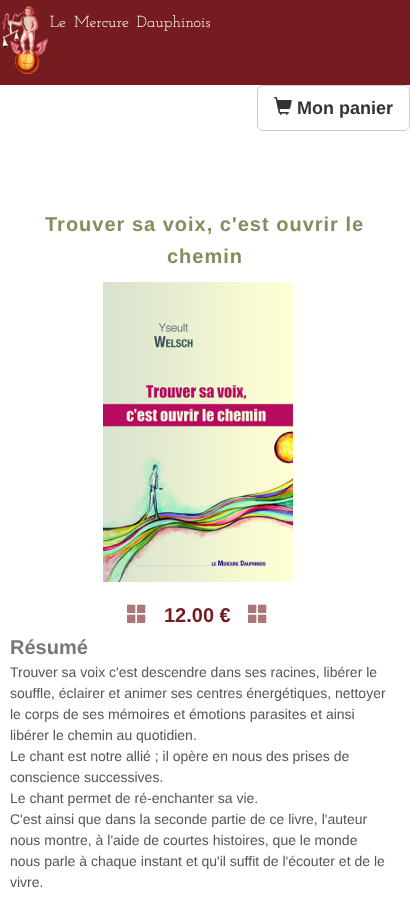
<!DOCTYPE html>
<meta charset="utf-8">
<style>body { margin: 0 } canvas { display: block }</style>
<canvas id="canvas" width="410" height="906"></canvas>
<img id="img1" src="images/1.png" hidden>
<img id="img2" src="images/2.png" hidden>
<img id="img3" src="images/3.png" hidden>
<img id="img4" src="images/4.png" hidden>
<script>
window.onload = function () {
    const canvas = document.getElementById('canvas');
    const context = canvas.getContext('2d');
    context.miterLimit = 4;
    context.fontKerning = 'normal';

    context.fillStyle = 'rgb(255, 255, 255)';
    context.fillRect(0, 0, 410, 906);
    context.fillStyle = 'rgb(118, 27, 31)';
    context.fillRect(0, 0, 410, 85);
    context.drawImage(document.getElementById('img1'), 2, 6, 47, 68);
    context.beginPath();
    context.roundRect(257.5, 85.5, 152, 45, 5.5);
    context.strokeStyle = 'rgb(204, 204, 204)';
    context.stroke();
    context.drawImage(document.getElementById('img2'), 274, 97, 18, 18);
    context.drawImage(document.getElementById('img3'), 103, 282, 190, 300);
    context.drawImage(document.getElementById('img4'), 127, 604, 19, 19);
    context.drawImage(document.getElementById('img4'), 248, 604, 19, 19);
    context.wordSpacing = '3px';
    context.font = '16px Josefin Slab';
    context.fillStyle = 'rgb(255, 255, 255)';
    context.fillText('Le Mercure Dauphinois', 50, 27);
    context.wordSpacing = '0px';
    context.font = 'bold 18px Liberation Sans';
    context.fillStyle = 'rgb(51, 51, 51)';
    context.fillText('Mon panier', 297, 114);
    context.letterSpacing = '1px';
    context.font = 'bold 20px Liberation Sans';
    context.fillStyle = 'rgb(139, 138, 94)';
    context.fillText('Trouver sa voix, c\'est ouvrir le', 45, 231);
    context.fillText('chemin', 167, 263);
    context.letterSpacing = '0px';
    context.fillStyle = 'rgb(118, 27, 31)';
    context.fillText('12.00 €', 164, 622);
    context.fillStyle = 'rgb(120, 120, 120)';
    context.fillText('Résumé', 10, 654);
    context.font = '14px Liberation Sans';
    context.fillStyle = 'rgb(85, 85, 85)';
    context.fillText('Trouver sa voix c\'est descendre dans ses racines, libérer le', 10, 677);
    context.fillText('souffle, éclairer et animer ses centres énergétiques, nettoyer', 10, 698);
    context.fillText('le corps de ses mémoires et émotions parasites et ainsi', 10, 719);
    context.fillText('libérer le chemin au quotidien.', 10, 740);
    context.fillText('Le chant est notre allié ; il opère en nous des prises de', 10, 761);
    context.fillText('conscience successives.', 10, 782);
    context.fillText('Le chant permet de ré-enchanter sa vie.', 10, 803);
    context.fillText('C\'est ainsi que dans la seconde partie de ce livre, l\'auteur', 10, 824);
    context.fillText('nous montre, à l\'aide de courtes histoires, que le monde', 10, 845);
    context.fillText('nous parle à chaque instant et qu\'il suffit de l\'écouter et de le', 10, 866);
    context.fillText('vivre.', 10, 887);
};
</script>
